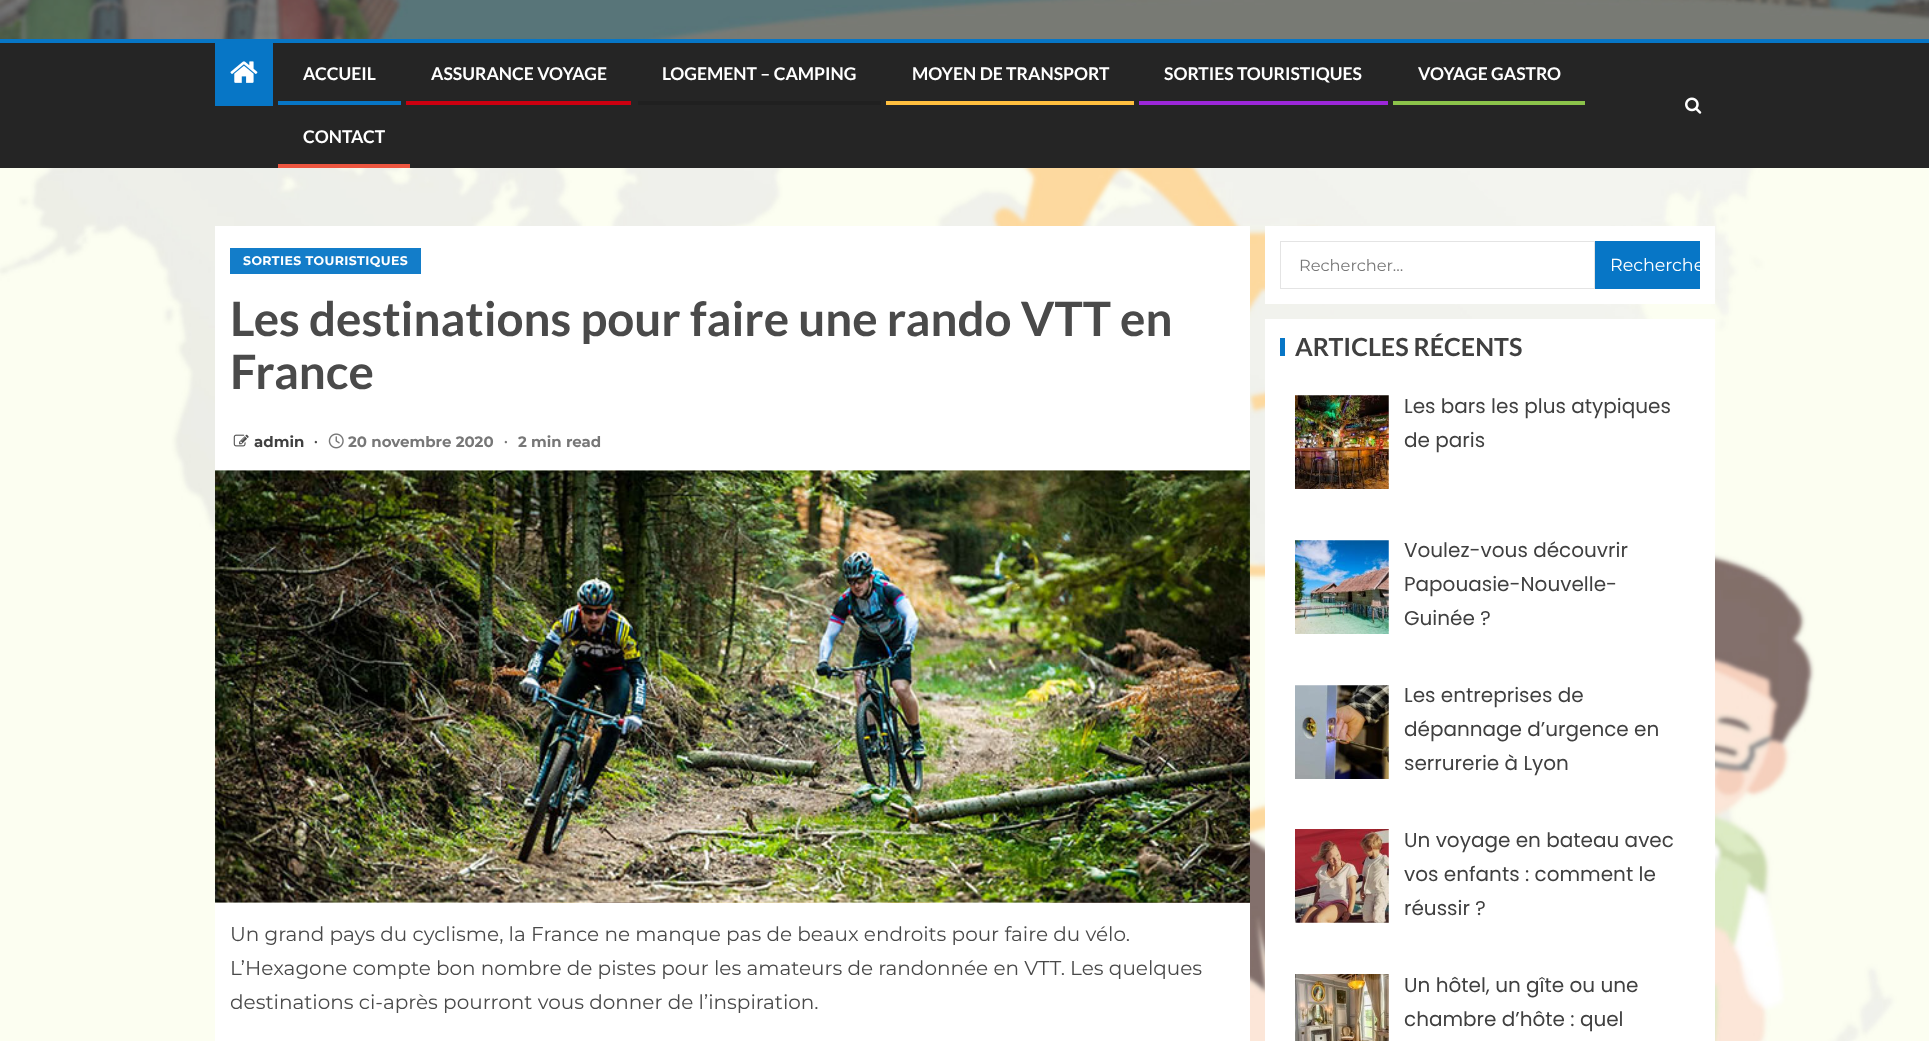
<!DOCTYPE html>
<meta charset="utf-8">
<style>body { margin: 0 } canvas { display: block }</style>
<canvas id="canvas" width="1929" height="1041"></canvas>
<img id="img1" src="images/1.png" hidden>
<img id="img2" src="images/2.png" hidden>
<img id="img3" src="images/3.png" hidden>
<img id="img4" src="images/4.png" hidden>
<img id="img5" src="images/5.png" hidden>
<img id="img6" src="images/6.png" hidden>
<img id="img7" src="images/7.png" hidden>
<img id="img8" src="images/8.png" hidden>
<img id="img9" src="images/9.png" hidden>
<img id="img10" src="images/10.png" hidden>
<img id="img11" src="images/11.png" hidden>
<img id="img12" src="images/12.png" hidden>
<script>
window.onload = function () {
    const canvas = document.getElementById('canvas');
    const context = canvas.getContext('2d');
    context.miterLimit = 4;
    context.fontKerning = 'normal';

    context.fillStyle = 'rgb(255, 255, 255)';
    context.fillRect(0, 0, 1929, 1041);
    context.drawImage(document.getElementById('img1'), 0, 168, 1929, 873);
    context.drawImage(document.getElementById('img2'), 0, 0, 1929, 39);
    context.fillStyle = 'rgb(37, 37, 37)';
    context.fillRect(0, 43, 1929, 125);
    context.fillStyle = 'rgb(7, 118, 198)';
    context.fillRect(0, 39, 1929, 4);
    context.fillRect(215, 43, 58, 63);
    context.drawImage(document.getElementById('img3'), 230, 61, 28, 22);
    context.fillRect(278, 101, 123, 4);
    context.fillStyle = 'rgb(204, 0, 16)';
    context.fillRect(406, 101, 225, 4);
    context.fillStyle = 'rgb(32, 32, 32)';
    context.fillRect(638, 101, 243, 4);
    context.fillStyle = 'rgb(255, 191, 63)';
    context.fillRect(886, 101, 248, 4);
    context.fillStyle = 'rgb(156, 39, 217)';
    context.fillRect(1139, 101, 249, 4);
    context.fillStyle = 'rgb(139, 195, 74)';
    context.fillRect(1393, 101, 192, 4);
    context.fillStyle = 'rgb(237, 85, 63)';
    context.fillRect(278, 164, 132, 4);
    context.drawImage(document.getElementById('img4'), 1685, 97, 17, 17);
    context.fillStyle = 'rgb(255, 255, 255)';
    context.fillRect(215, 226, 1035, 244);
    context.fillStyle = 'rgb(19, 125, 201)';
    context.fillRect(230, 248, 191, 26);
    context.drawImage(document.getElementById('img5'), 233, 434, 16, 13);
    context.drawImage(document.getElementById('img6'), 328, 433, 16, 16);
    context.drawImage(document.getElementById('img7'), 215, 470, 1035, 433);
    context.fillStyle = 'rgb(255, 255, 255)';
    context.fillRect(215, 903, 1035, 138);
    context.fillRect(1265, 226, 450, 78);
    context.strokeStyle = 'rgb(228, 228, 228)';
    context.strokeRect(1280.5, 241.5, 314, 47);
    context.fillStyle = 'rgb(7, 118, 198)';
    context.fillRect(1595, 241, 105, 48);
    context.fillStyle = 'rgb(255, 255, 255)';
    context.fillRect(1265, 319, 450, 722);
    context.fillStyle = 'rgb(7, 118, 198)';
    context.fillRect(1280, 338, 5, 18);
    context.drawImage(document.getElementById('img8'), 1295, 395, 94, 94);
    context.drawImage(document.getElementById('img9'), 1295, 540, 94, 94);
    context.drawImage(document.getElementById('img10'), 1295, 685, 94, 94);
    context.drawImage(document.getElementById('img11'), 1295, 829, 94, 94);
    context.drawImage(document.getElementById('img12'), 1295, 974, 94, 67);
    context.font = 'bold 17.5px Lato';
    context.fillStyle = 'rgb(255, 255, 255)';
    context.fillText('ACCUEIL', 303, 80);
    context.fillText('ASSURANCE VOYAGE', 431, 80);
    context.fillText('LOGEMENT – CAMPING', 662, 80);
    context.fillText('MOYEN DE TRANSPORT', 912, 80);
    context.fillText('SORTIES TOURISTIQUES', 1164, 80);
    context.fillText('VOYAGE GASTRO', 1418, 80);
    context.fillText('CONTACT', 303, 143);
    context.letterSpacing = '0.4px';
    context.font = 'bold 12.5px Montserrat';
    context.fillText('SORTIES TOURISTIQUES', 243, 265);
    context.letterSpacing = '0px';
    context.font = 'bold 47.5px Lato';
    context.fillStyle = 'rgb(74, 74, 74)';
    context.fillText('Les destinations pour faire une rando VTT en', 230, 336);
    context.fillText('France', 230, 389);
    context.font = 'bold 15px Montserrat';
    context.fillStyle = 'rgb(64, 64, 64)';
    context.fillText('admin', 254, 447);
    context.font = 'bold 15px Liberation Serif';
    context.fillStyle = 'rgb(74, 74, 74)';
    context.fillText('∙', 314, 447);
    context.font = 'bold 15px Montserrat';
    context.fillStyle = 'rgb(119, 119, 119)';
    context.fillText('20 novembre 2020', 348, 447);
    context.font = 'bold 15px Liberation Serif';
    context.fillText('∙', 504, 447);
    context.font = 'bold 15px Montserrat';
    context.fillText('2 min read', 518, 447);
    context.font = '20px Montserrat';
    context.fillStyle = 'rgb(74, 74, 74)';
    context.fillText('Un grand pays du cyclisme, la France ne manque pas de beaux endroits pour faire du vélo.', 230, 941);
    context.fillText('L’Hexagone compte bon nombre de pistes pour les amateurs de randonnée en VTT. Les quelques', 230, 975);
    context.fillText('destinations ci-après pourront vous donner de l’inspiration.', 230, 1009);
    context.font = '16.25px Montserrat';
    context.fillStyle = 'rgb(119, 119, 119)';
    context.fillText('Rechercher…', 1299, 271);
    context.save();
    context.beginPath();
    context.rect(1595, 241, 105, 48);
    context.clip();
    context.font = '17.5px Montserrat';
    context.fillStyle = 'rgb(255, 255, 255)';
    context.fillText('Recherche', 1610, 271);
    context.restore();
    context.font = 'bold 25px Lato';
    context.fillStyle = 'rgb(64, 64, 64)';
    context.fillText('ARTICLES RÉCENTS', 1295, 356);
    context.font = '20px Poppins';
    context.fillText('Les bars les plus atypiques', 1404, 413);
    context.fillText('de paris', 1404, 447);
    context.fillText('Voulez-vous découvrir', 1404, 557);
    context.fillText('Papouasie-Nouvelle-', 1404, 591);
    context.fillText('Guinée ?', 1404, 625);
    context.fillText('Les entreprises de', 1404, 702);
    context.fillText('dépannage d’urgence en', 1404, 736);
    context.fillText('serrurerie à Lyon', 1404, 770);
    context.fillText('Un voyage en bateau avec', 1404, 847);
    context.fillText('vos enfants : comment le', 1404, 881);
    context.fillText('réussir ?', 1404, 915);
    context.fillText('Un hôtel, un gîte ou une', 1404, 992);
    context.fillText('chambre d’hôte : quel', 1404, 1026);
};
</script>
